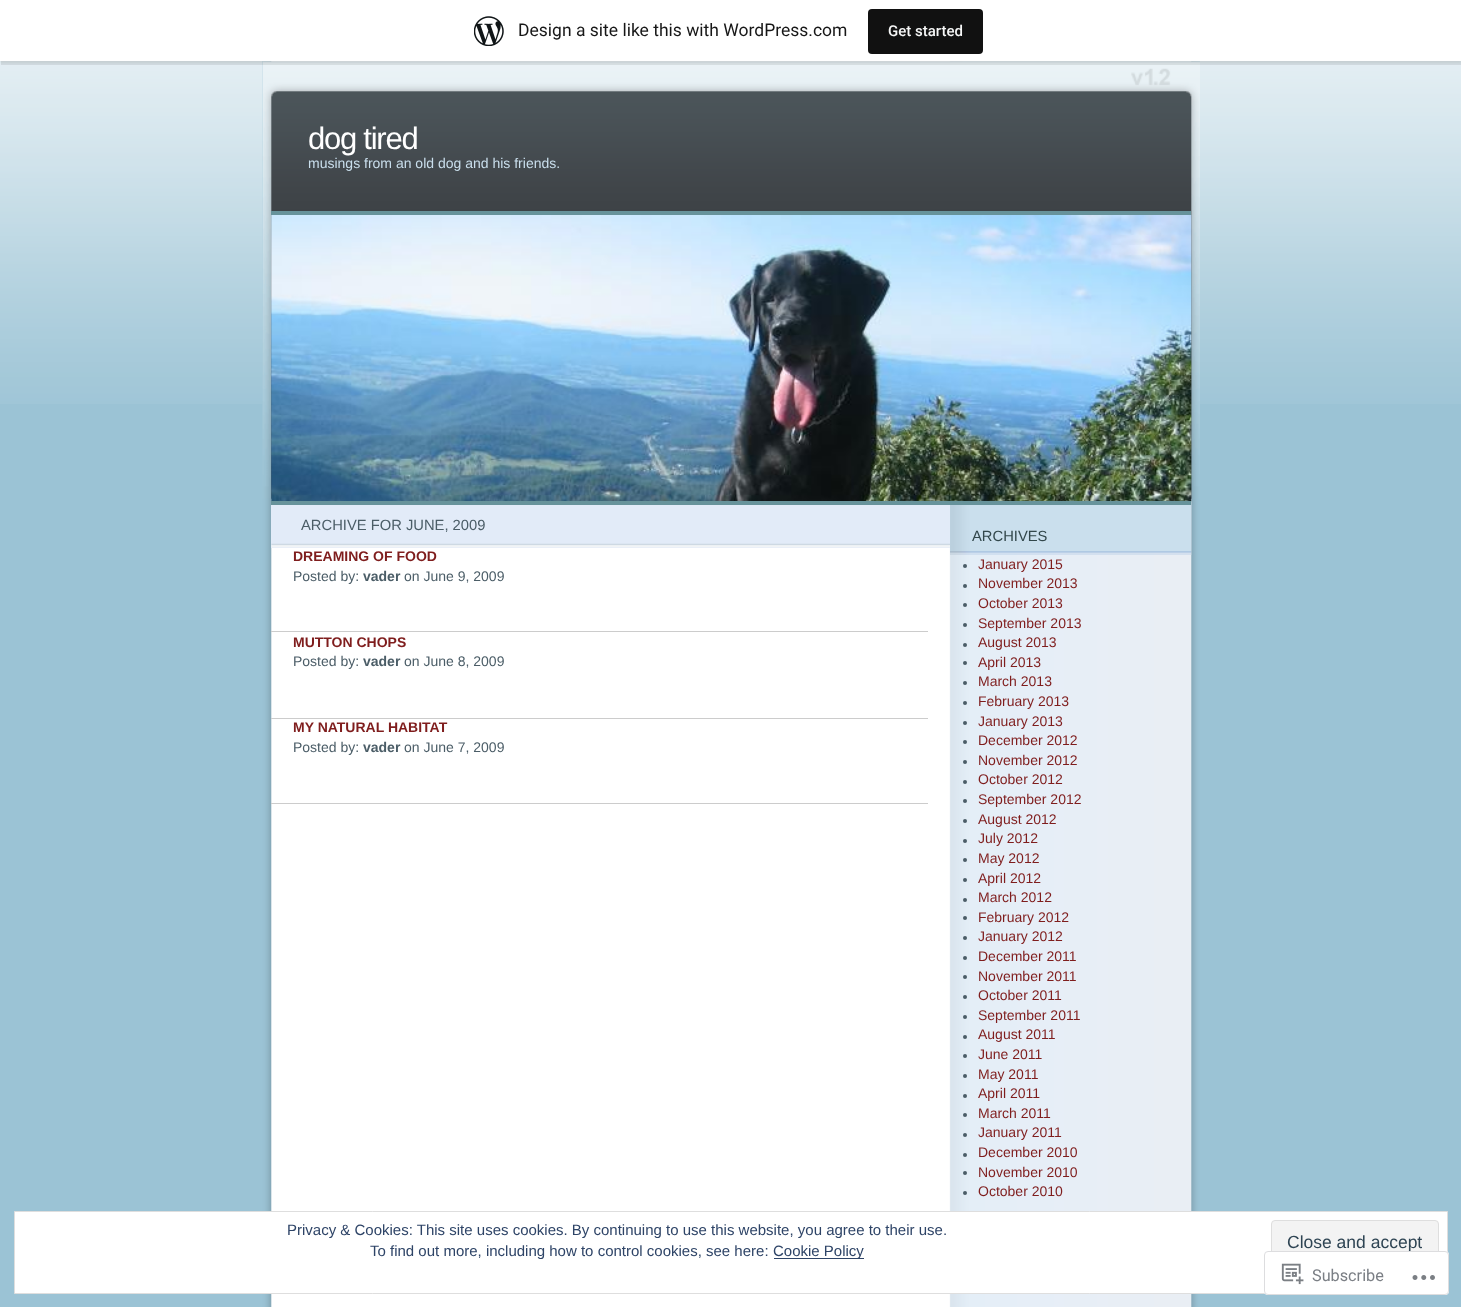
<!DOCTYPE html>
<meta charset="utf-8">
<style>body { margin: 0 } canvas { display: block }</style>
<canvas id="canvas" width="1461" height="1307"></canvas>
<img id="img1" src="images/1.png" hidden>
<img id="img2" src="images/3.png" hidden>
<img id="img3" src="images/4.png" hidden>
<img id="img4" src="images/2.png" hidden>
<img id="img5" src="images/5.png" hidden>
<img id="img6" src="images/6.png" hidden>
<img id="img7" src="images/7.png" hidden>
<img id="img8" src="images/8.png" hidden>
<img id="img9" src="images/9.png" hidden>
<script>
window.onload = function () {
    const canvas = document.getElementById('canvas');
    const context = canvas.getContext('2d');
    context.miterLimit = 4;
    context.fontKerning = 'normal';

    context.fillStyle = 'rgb(155, 195, 213)';
    context.fillRect(0, 0, 1461, 1307);
    context.drawImage(document.getElementById('img1'), 0, 61, 1461, 343);
    context.drawImage(document.getElementById('img2'), 262, 61, 938, 1246);
    context.drawImage(document.getElementById('img3'), 262, 61, 938, 438);
    context.fillStyle = 'rgba(0, 0, 0, 0.05)';
    context.filter = 'blur(1px)';
    context.beginPath();
    context.rect(0, 1, 1461, 62);
    context.fill();
    context.filter = 'none';
    context.fillStyle = 'rgba(0, 0, 0, 0.08)';
    context.beginPath();
    context.moveTo(1, 61);
    context.lineTo(1, 65);
    context.lineTo(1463, 65);
    context.lineTo(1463, 4);
    context.lineTo(1461, 4);
    context.lineTo(1461, 61);
    context.closePath();
    context.fill();
    context.fillStyle = 'rgb(255, 255, 255)';
    context.fillRect(0, 0, 1461, 61);
    context.drawImage(document.getElementById('img4'), 474, 16, 30, 30);
    context.fillStyle = 'rgb(17, 17, 17)';
    context.beginPath();
    context.roundRect(868, 9, 115, 45, 4);
    context.fill();
    context.drawImage(document.getElementById('img5'), 271, 215, 921, 287);
    context.fillStyle = 'rgb(103, 147, 155)';
    context.fillRect(271, 211, 920, 4);
    context.fillRect(271, 501, 920, 4);
    context.fillStyle = 'rgb(226, 235, 248)';
    context.fillRect(271, 505, 679, 43);
    context.drawImage(document.getElementById('img6'), 271, 543, 679, 5);
    context.fillStyle = 'rgb(204, 204, 204)';
    context.fillRect(271, 631, 657, 1);
    context.fillRect(271, 718, 657, 1);
    context.fillRect(271, 803, 657, 1);
    context.drawImage(document.getElementById('img7'), 950, 505, 242, 50);
    context.fillStyle = 'rgb(75, 93, 103)';
    context.beginPath();
    context.arc(965, 566, 2, 0, 2 * Math.PI);
    context.fill();
    context.beginPath();
    context.arc(965, 586, 2, 0, 2 * Math.PI);
    context.fill();
    context.beginPath();
    context.arc(965, 605, 2, 0, 2 * Math.PI);
    context.fill();
    context.beginPath();
    context.arc(965, 625, 2, 0, 2 * Math.PI);
    context.fill();
    context.beginPath();
    context.arc(965, 645, 2, 0, 2 * Math.PI);
    context.fill();
    context.beginPath();
    context.arc(965, 663, 2, 0, 2 * Math.PI);
    context.fill();
    context.beginPath();
    context.arc(965, 683, 2, 0, 2 * Math.PI);
    context.fill();
    context.beginPath();
    context.arc(965, 703, 2, 0, 2 * Math.PI);
    context.fill();
    context.beginPath();
    context.arc(965, 723, 2, 0, 2 * Math.PI);
    context.fill();
    context.beginPath();
    context.arc(965, 742, 2, 0, 2 * Math.PI);
    context.fill();
    context.beginPath();
    context.arc(965, 762, 2, 0, 2 * Math.PI);
    context.fill();
    context.beginPath();
    context.arc(965, 782, 2, 0, 2 * Math.PI);
    context.fill();
    context.beginPath();
    context.arc(965, 801, 2, 0, 2 * Math.PI);
    context.fill();
    context.beginPath();
    context.arc(965, 821, 2, 0, 2 * Math.PI);
    context.fill();
    context.beginPath();
    context.arc(965, 841, 2, 0, 2 * Math.PI);
    context.fill();
    context.beginPath();
    context.arc(965, 860, 2, 0, 2 * Math.PI);
    context.fill();
    context.beginPath();
    context.arc(965, 880, 2, 0, 2 * Math.PI);
    context.fill();
    context.beginPath();
    context.arc(965, 900, 2, 0, 2 * Math.PI);
    context.fill();
    context.beginPath();
    context.arc(965, 918, 2, 0, 2 * Math.PI);
    context.fill();
    context.beginPath();
    context.arc(965, 938, 2, 0, 2 * Math.PI);
    context.fill();
    context.beginPath();
    context.arc(965, 958, 2, 0, 2 * Math.PI);
    context.fill();
    context.beginPath();
    context.arc(965, 977, 2, 0, 2 * Math.PI);
    context.fill();
    context.beginPath();
    context.arc(965, 997, 2, 0, 2 * Math.PI);
    context.fill();
    context.beginPath();
    context.arc(965, 1017, 2, 0, 2 * Math.PI);
    context.fill();
    context.beginPath();
    context.arc(965, 1037, 2, 0, 2 * Math.PI);
    context.fill();
    context.beginPath();
    context.arc(965, 1056, 2, 0, 2 * Math.PI);
    context.fill();
    context.beginPath();
    context.arc(965, 1076, 2, 0, 2 * Math.PI);
    context.fill();
    context.beginPath();
    context.arc(965, 1096, 2, 0, 2 * Math.PI);
    context.fill();
    context.beginPath();
    context.arc(965, 1115, 2, 0, 2 * Math.PI);
    context.fill();
    context.beginPath();
    context.arc(965, 1135, 2, 0, 2 * Math.PI);
    context.fill();
    context.beginPath();
    context.arc(965, 1155, 2, 0, 2 * Math.PI);
    context.fill();
    context.beginPath();
    context.arc(965, 1173, 2, 0, 2 * Math.PI);
    context.fill();
    context.beginPath();
    context.arc(965, 1193, 2, 0, 2 * Math.PI);
    context.fill();
    context.fillStyle = 'rgb(255, 255, 255)';
    context.beginPath();
    context.rect(14.5, 1211.5, 1433, 82);
    context.fill();
    context.strokeStyle = 'rgb(222, 222, 222)';
    context.stroke();
    context.fillStyle = 'rgb(46, 68, 103)';
    context.fillRect(774, 1258, 90, 1);
    context.fillStyle = 'rgb(243, 243, 243)';
    context.beginPath();
    context.roundRect(1271.5, 1220.5, 167, 43, 3.5);
    context.fill();
    context.stroke();
    context.font = '17.5px Roboto';
    context.fillStyle = 'rgb(23, 23, 23)';
    context.fillText('Design a site like this with WordPress.com', 518, 36);
    context.font = '500 15px Roboto';
    context.fillStyle = 'rgb(246, 247, 247)';
    context.fillText('Get started', 888, 36);
    context.letterSpacing = '-1.25px';
    context.font = '31px Liberation Sans';
    context.fillStyle = 'rgb(255, 255, 255)';
    context.fillText('dog tired', 308, 149);
    context.letterSpacing = '0px';
    context.font = '14px Liberation Sans';
    context.fillStyle = 'rgb(202, 223, 237)';
    context.fillText('musings from an old dog and his friends.', 308, 168);
    context.font = '14.75px Liberation Sans';
    context.fillStyle = 'rgb(75, 93, 103)';
    context.fillText('ARCHIVE FOR JUNE, 2009', 301, 530);
    context.font = 'bold 14px Liberation Sans';
    context.fillStyle = 'rgb(127, 29, 29)';
    context.fillText('DREAMING OF FOOD', 293, 561);
    context.font = '14px Liberation Sans';
    context.fillStyle = 'rgb(75, 93, 103)';
    context.fillText('Posted by:', 293, 581);
    context.font = 'bold 14px Liberation Sans';
    context.fillText('vader', 363, 581);
    context.font = '14px Liberation Sans';
    context.fillText('on June 9, 2009', 404, 581);
    context.font = 'bold 14px Liberation Sans';
    context.fillStyle = 'rgb(127, 29, 29)';
    context.fillText('MUTTON CHOPS', 293, 647);
    context.font = '14px Liberation Sans';
    context.fillStyle = 'rgb(75, 93, 103)';
    context.fillText('Posted by:', 293, 666);
    context.font = 'bold 14px Liberation Sans';
    context.fillText('vader', 363, 666);
    context.font = '14px Liberation Sans';
    context.fillText('on June 8, 2009', 404, 666);
    context.font = 'bold 14px Liberation Sans';
    context.fillStyle = 'rgb(127, 29, 29)';
    context.fillText('MY NATURAL HABITAT', 293, 732);
    context.font = '14px Liberation Sans';
    context.fillStyle = 'rgb(75, 93, 103)';
    context.fillText('Posted by:', 293, 752);
    context.font = 'bold 14px Liberation Sans';
    context.fillText('vader', 363, 752);
    context.font = '14px Liberation Sans';
    context.fillText('on June 7, 2009', 404, 752);
    context.font = '14.75px Liberation Sans';
    context.fillStyle = 'rgb(50, 71, 75)';
    context.fillText('ARCHIVES', 972, 541);
    context.font = '14px Liberation Sans';
    context.fillStyle = 'rgb(127, 29, 29)';
    context.fillText('January 2015', 978, 569);
    context.fillText('November 2013', 978, 588);
    context.fillText('October 2013', 978, 608);
    context.fillText('September 2013', 978, 628);
    context.fillText('August 2013', 978, 647);
    context.fillText('April 2013', 978, 667);
    context.fillText('March 2013', 978, 686);
    context.fillText('February 2013', 978, 706);
    context.fillText('January 2013', 978, 726);
    context.fillText('December 2012', 978, 745);
    context.fillText('November 2012', 978, 765);
    context.fillText('October 2012', 978, 784);
    context.fillText('September 2012', 978, 804);
    context.fillText('August 2012', 978, 824);
    context.fillText('July 2012', 978, 843);
    context.fillText('May 2012', 978, 863);
    context.fillText('April 2012', 978, 883);
    context.fillText('March 2012', 978, 902);
    context.fillText('February 2012', 978, 922);
    context.fillText('January 2012', 978, 941);
    context.fillText('December 2011', 978, 961);
    context.fillText('November 2011', 978, 981);
    context.fillText('October 2011', 978, 1000);
    context.fillText('September 2011', 978, 1020);
    context.fillText('August 2011', 978, 1039);
    context.fillText('June 2011', 978, 1059);
    context.fillText('May 2011', 978, 1079);
    context.fillText('April 2011', 978, 1098);
    context.fillText('March 2011', 978, 1118);
    context.fillText('January 2011', 978, 1137);
    context.fillText('December 2010', 978, 1157);
    context.fillText('November 2010', 978, 1177);
    context.fillText('October 2010', 978, 1196);
    context.font = '15px Liberation Sans';
    context.fillStyle = 'rgb(46, 68, 103)';
    context.fillText('Privacy & Cookies: This site uses cookies. By continuing to use this website, you agree to their use.', 287, 1235);
    context.fillText('To find out more, including how to control cookies, see here:', 370, 1256);
    context.fillText('Cookie Policy', 773, 1256);
    context.font = '17.5px Liberation Sans';
    context.fillStyle = 'rgb(46, 68, 83)';
    context.fillText('Close and accept', 1287, 1248);
    context.fillStyle = 'rgba(255, 255, 255, 0.98)';
    context.beginPath();
    context.roundRect(1264, 1251, 185, 44, 4);
    context.fill();
    context.beginPath();
    context.roundRect(1264.5, 1251.5, 184, 43, 3.5);
    context.strokeStyle = 'rgba(220, 220, 222, 0.98)';
    context.stroke();
    context.drawImage(document.getElementById('img8'), 1281, 1263, 23, 22);
    context.font = '16.25px Roboto';
    context.fillStyle = 'rgb(123, 127, 133)';
    context.fillText('Subscribe', 1312, 1281);
    context.drawImage(document.getElementById('img9'), 1412, 1275, 23, 5);
};
</script>
